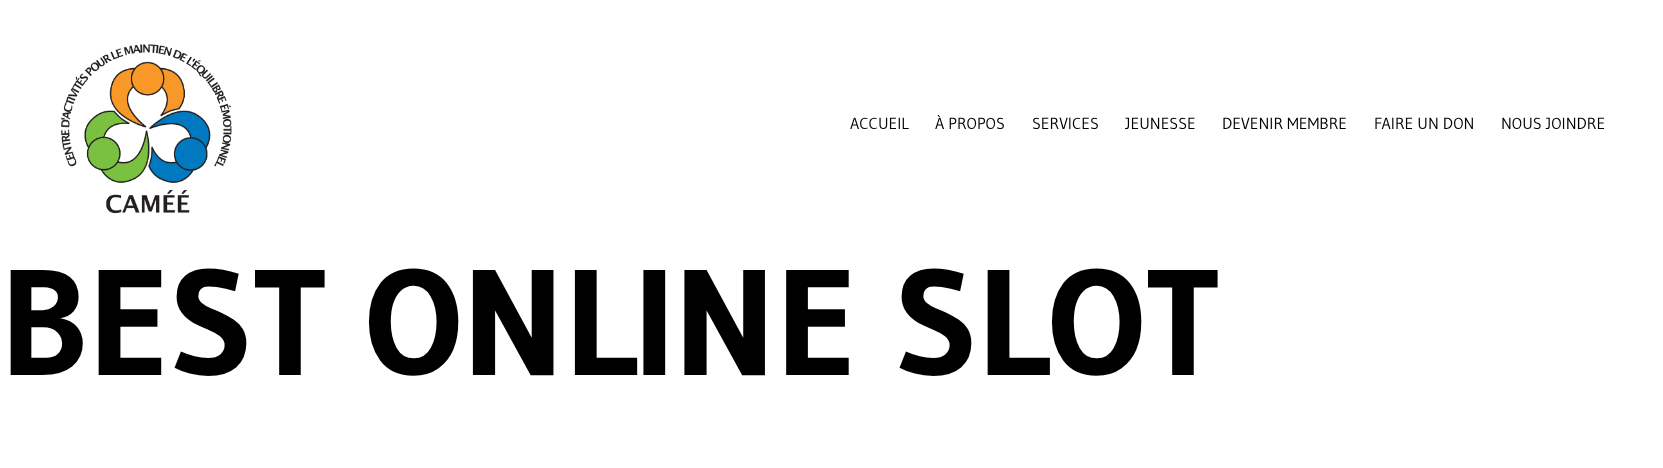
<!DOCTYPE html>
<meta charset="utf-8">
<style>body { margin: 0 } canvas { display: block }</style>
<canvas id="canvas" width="1663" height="468"></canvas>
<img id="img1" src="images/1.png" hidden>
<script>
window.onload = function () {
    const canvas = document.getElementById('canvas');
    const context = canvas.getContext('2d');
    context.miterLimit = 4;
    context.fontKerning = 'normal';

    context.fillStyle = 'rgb(255, 255, 255)';
    context.fillRect(0, 0, 1663, 468);
    context.drawImage(document.getElementById('img1'), 60, 44, 172, 170);
    context.font = '16px Gudea';
    context.fillStyle = 'rgb(0, 0, 0)';
    context.fillText('ACCUEIL', 850, 129);
    context.fillText('À PROPOS', 935, 129);
    context.fillText('SERVICES', 1032, 129);
    context.fillText('JEUNESSE', 1125, 129);
    context.fillText('DEVENIR MEMBRE', 1222, 129);
    context.fillText('FAIRE UN DON', 1374, 129);
    context.fillText('NOUS JOINDRE', 1501, 129);
    context.font = 'bold 150px Gudea';
    context.fillText('BEST ONLINE SLOT', 0, 375);
};
</script>
